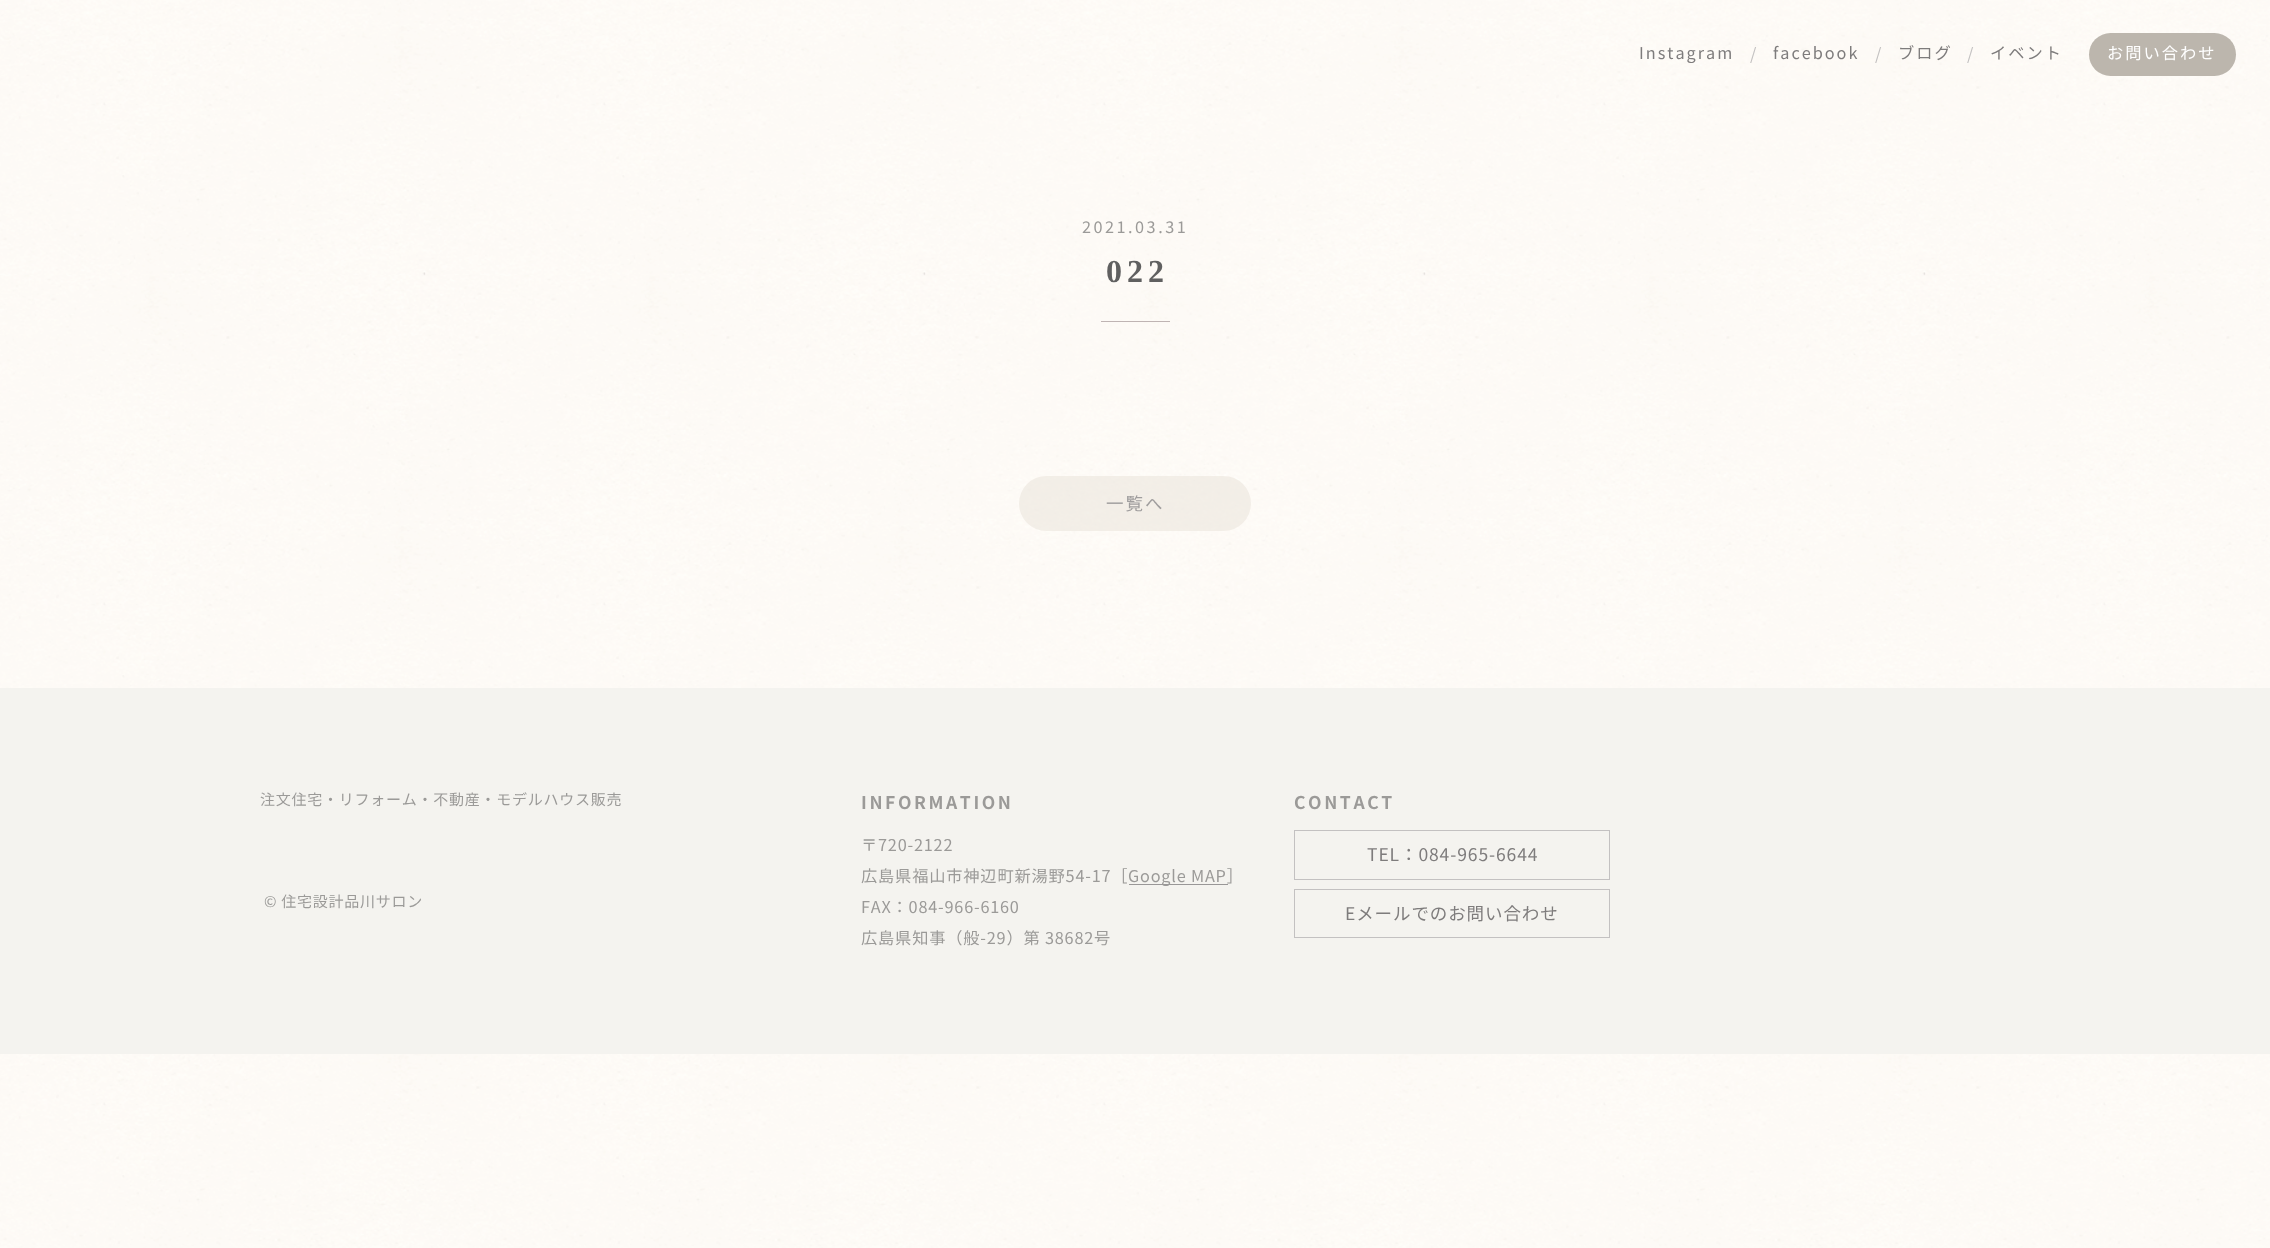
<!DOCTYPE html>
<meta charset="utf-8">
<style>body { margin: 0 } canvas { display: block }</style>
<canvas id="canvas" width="2270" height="1248"></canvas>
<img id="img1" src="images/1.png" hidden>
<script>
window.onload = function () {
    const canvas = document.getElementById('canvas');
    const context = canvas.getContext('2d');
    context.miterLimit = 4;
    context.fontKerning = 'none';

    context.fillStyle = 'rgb(255, 255, 255)';
    context.fillRect(0, 0, 2270, 1248);
    context.drawImage(document.getElementById('img1'), 0, 0, 2270, 1248);
    context.fillStyle = 'rgb(188, 182, 173)';
    context.beginPath();
    context.roundRect(2089, 33, 147, 43, 21.5);
    context.fill();
    context.fillStyle = 'rgb(191, 180, 179)';
    context.fillRect(1101, 321, 69, 1);
    context.fillStyle = 'rgba(234, 228, 218, 0.55)';
    context.beginPath();
    context.roundRect(1019, 476, 232, 55, 27.5);
    context.fill();
    context.fillStyle = 'rgb(244, 243, 239)';
    context.fillRect(0, 688, 2270, 366);
    context.fillStyle = 'rgb(153, 151, 151)';
    context.fillRect(1129, 884, 99, 1);
    context.strokeStyle = 'rgb(195, 193, 193)';
    context.strokeRect(1294.5, 830.5, 315, 49);
    context.strokeRect(1294.5, 889.5, 315, 48);
    context.letterSpacing = '2px';
    context.font = '16.25px Noto Sans JP';
    context.fillStyle = 'rgb(126, 124, 124)';
    context.fillText('Instagram', 1639, 59);
    context.fillStyle = 'rgb(195, 193, 193)';
    context.fillText('/', 1750, 60);
    context.fillStyle = 'rgb(126, 124, 124)';
    context.fillText('facebook', 1773, 59);
    context.fillStyle = 'rgb(195, 193, 193)';
    context.fillText('/', 1875, 60);
    context.fillStyle = 'rgb(126, 124, 124)';
    context.fillText('ブログ', 1898, 59);
    context.fillStyle = 'rgb(195, 193, 193)';
    context.fillText('/', 1967, 60);
    context.fillStyle = 'rgb(126, 124, 124)';
    context.fillText('イベント', 1990, 59);
    context.fillStyle = 'rgb(255, 255, 255)';
    context.fillText('お問い合わせ', 2107, 59);
    context.letterSpacing = '2.5px';
    context.fillStyle = 'rgb(155, 154, 152)';
    context.fillText('2021.03.31', 1082, 233);
    context.letterSpacing = '5px';
    context.font = 'bold 32px Liberation Serif';
    context.fillStyle = 'rgb(96, 96, 96)';
    context.fillText('022', 1106, 282);
    context.letterSpacing = '2px';
    context.font = '17.5px Noto Sans JP';
    context.fillStyle = 'rgb(160, 158, 158)';
    context.fillText('一覧へ', 1106, 510);
    context.letterSpacing = '0.75px';
    context.font = '15px Noto Sans JP';
    context.fillStyle = 'rgb(155, 154, 152)';
    context.fillText('注文住宅・リフォーム・不動産・モデルハウス販売', 260, 805);
    context.fillText('© 住宅設計品川サロン', 264, 907);
    context.letterSpacing = '2.6px';
    context.font = 'bold 17.5px Noto Sans JP';
    context.fillText('INFORMATION', 861, 809);
    context.letterSpacing = '0.8px';
    context.font = '16.25px Noto Sans JP';
    context.fillText('〒720-2122', 861, 851);
    context.fillText('広島県福山市神辺町新湯野54-17［', 861, 882);
    context.fillText('Google MAP］', 1128, 882);
    context.fillText('FAX：084-966-6160', 861, 913);
    context.fillText('広島県知事（般-29）第 38682号', 861, 944);
    context.letterSpacing = '2.6px';
    context.font = 'bold 17.5px Noto Sans JP';
    context.fillText('CONTACT', 1294, 809);
    context.letterSpacing = '0.9px';
    context.font = '17.5px Noto Sans JP';
    context.fillStyle = 'rgb(126, 124, 124)';
    context.fillText('TEL：084-965-6644', 1367, 861);
    context.fillText('Eメールでのお問い合わせ', 1345, 920);
};
</script>
